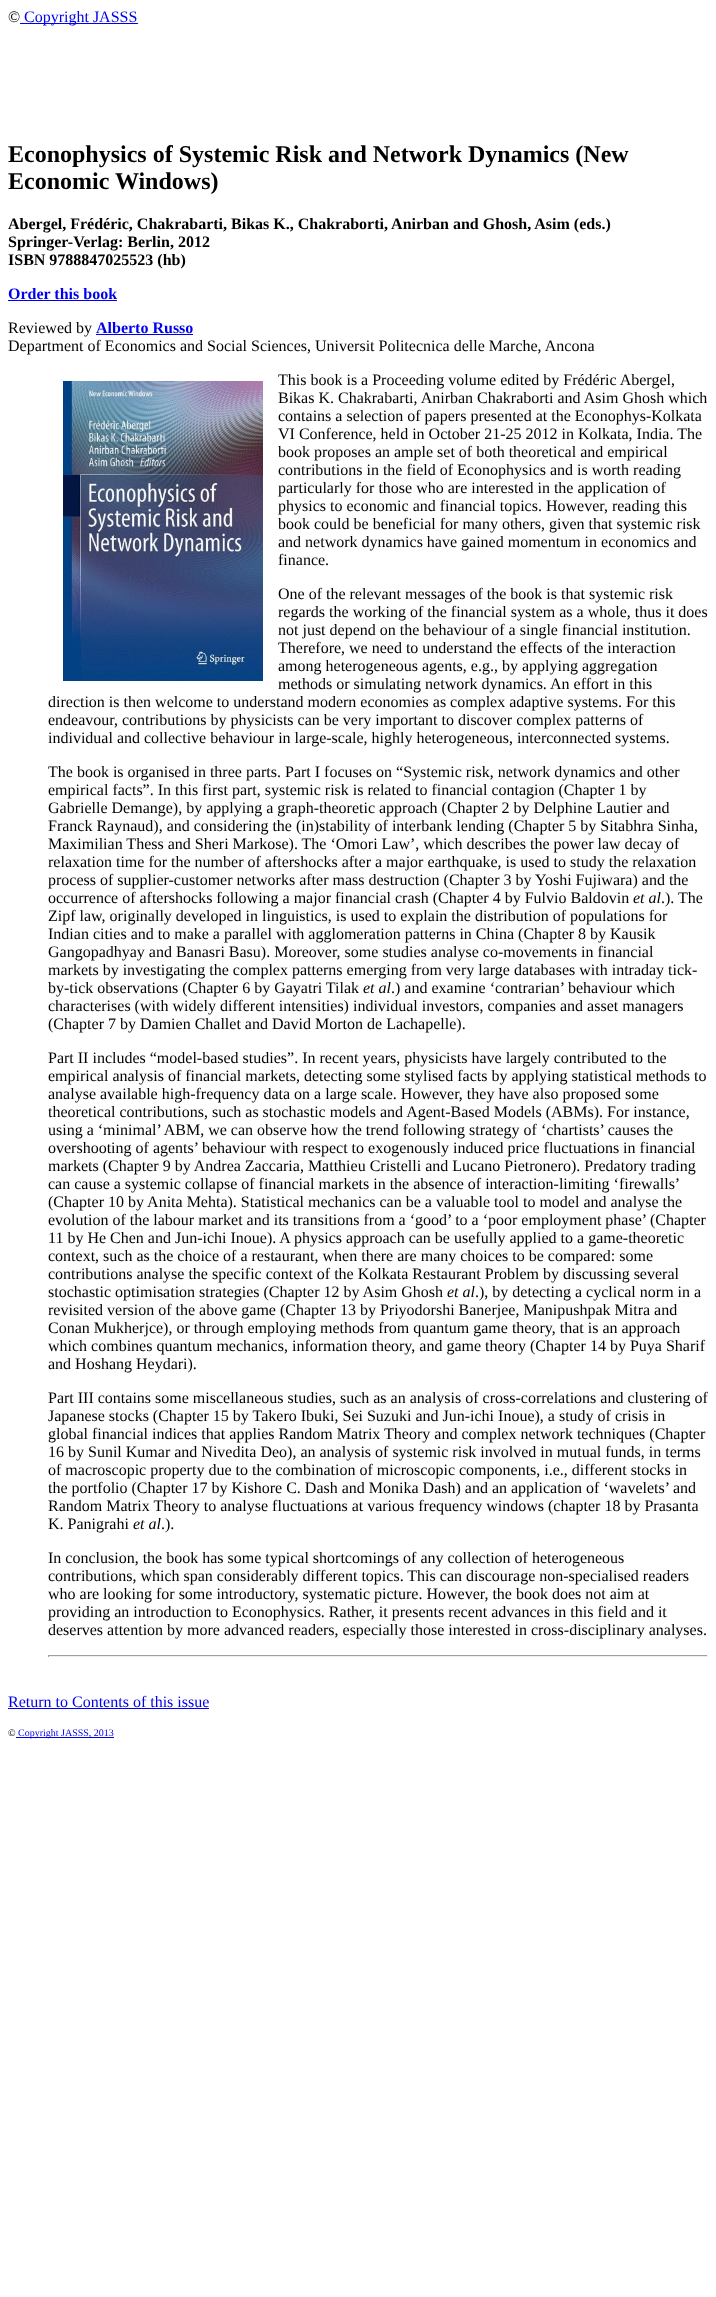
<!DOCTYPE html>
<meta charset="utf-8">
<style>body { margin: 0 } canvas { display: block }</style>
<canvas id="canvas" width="716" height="2297"></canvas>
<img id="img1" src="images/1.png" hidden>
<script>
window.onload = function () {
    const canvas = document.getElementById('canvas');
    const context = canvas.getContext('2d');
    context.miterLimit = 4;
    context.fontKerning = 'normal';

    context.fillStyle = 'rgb(255, 255, 255)';
    context.fillRect(0, 0, 716, 2297);
    context.fillStyle = 'rgb(0, 0, 238)';
    context.fillRect(20, 23, 118, 1);
    context.fillRect(8, 300, 109, 1);
    context.fillRect(96, 334, 97, 1);
    context.drawImage(document.getElementById('img1'), 63, 381, 200, 300);
    context.fillStyle = 'rgb(159, 159, 159)';
    context.fillRect(48, 1655, 660, 1);
    context.fillStyle = 'rgb(238, 238, 238)';
    context.fillRect(707, 1655, 1, 2);
    context.fillRect(48, 1656, 660, 1);
    context.fillStyle = 'rgb(159, 159, 159)';
    context.fillRect(48, 1655, 1, 2);
    context.fillStyle = 'rgb(0, 0, 238)';
    context.fillRect(8, 1708, 201, 1);
    context.fillRect(16, 1737, 98, 1);
    context.font = '16px Liberation Serif';
    context.fillStyle = 'rgb(0, 0, 0)';
    context.fillText('©', 8, 22);
    context.fillStyle = 'rgb(0, 0, 238)';
    context.fillText('Copyright JASSS', 24, 22);
    context.font = 'bold 24px Liberation Serif';
    context.fillStyle = 'rgb(0, 0, 0)';
    context.fillText('Econophysics of Systemic Risk and Network Dynamics (New', 8, 162);
    context.fillText('Economic Windows)', 8, 189);
    context.font = 'bold 16px Liberation Serif';
    context.fillText('Abergel, Frédéric, Chakrabarti, Bikas K., Chakraborti, Anirban and Ghosh, Asim (eds.)', 8, 229);
    context.fillText('Springer-Verlag: Berlin, 2012', 8, 247);
    context.fillText('ISBN 9788847025523 (hb)', 8, 265);
    context.fillStyle = 'rgb(0, 0, 238)';
    context.fillText('Order this book', 8, 299);
    context.font = '16px Liberation Serif';
    context.fillStyle = 'rgb(0, 0, 0)';
    context.fillText('Reviewed by', 8, 333);
    context.font = 'bold 16px Liberation Serif';
    context.fillStyle = 'rgb(0, 0, 238)';
    context.fillText('Alberto Russo', 96, 333);
    context.font = '16px Liberation Serif';
    context.fillStyle = 'rgb(0, 0, 0)';
    context.fillText('Department of Economics and Social Sciences, Universit Politecnica delle Marche, Ancona', 8, 351);
    context.fillText('This book is a Proceeding volume edited by Frédéric Abergel,', 278, 385);
    context.fillText('Bikas K. Chakrabarti, Anirban Chakraborti and Asim Ghosh which', 278, 403);
    context.fillText('contains a selection of papers presented at the Econophys-Kolkata', 278, 421);
    context.fillText('VI Conference, held in October 21-25 2012 in Kolkata, India. The', 278, 439);
    context.fillText('book proposes an ample set of both theoretical and empirical', 278, 457);
    context.fillText('contributions in the field of Econophysics and is worth reading', 278, 475);
    context.fillText('particularly for those who are interested in the application of', 278, 493);
    context.fillText('physics to economic and financial topics. However, reading this', 278, 511);
    context.fillText('book could be beneficial for many others, given that systemic risk', 278, 529);
    context.fillText('and network dynamics have gained momentum in economics and', 278, 547);
    context.fillText('finance.', 278, 565);
    context.fillText('One of the relevant messages of the book is that systemic risk', 278, 599);
    context.fillText('regards the working of the financial system as a whole, thus it does', 278, 617);
    context.fillText('not just depend on the behaviour of a single financial institution.', 278, 635);
    context.fillText('Therefore, we need to understand the effects of the interaction', 278, 653);
    context.fillText('among heterogeneous agents, e.g., by applying aggregation', 278, 671);
    context.fillText('methods or simulating network dynamics. An effort in this', 278, 689);
    context.fillText('direction is then welcome to understand modern economies as complex adaptive systems. For this', 48, 707);
    context.fillText('endeavour, contributions by physicists can be very important to discover complex patterns of', 48, 725);
    context.fillText('individual and collective behaviour in large-scale, highly heterogeneous, interconnected systems.', 48, 743);
    context.fillText('The book is organised in three parts. Part I focuses on “Systemic risk, network dynamics and other', 48, 777);
    context.fillText('empirical facts”. In this first part, systemic risk is related to financial contagion (Chapter 1 by', 48, 795);
    context.fillText('Gabrielle Demange), by applying a graph-theoretic approach (Chapter 2 by Delphine Lautier and', 48, 813);
    context.fillText('Franck Raynaud), and considering the (in)stability of interbank lending (Chapter 5 by Sitabhra Sinha,', 48, 831);
    context.fillText('Maximilian Thess and Sheri Markose). The ‘Omori Law’, which describes the power law decay of', 48, 849);
    context.fillText('relaxation time for the number of aftershocks after a major earthquake, is used to study the relaxation', 48, 867);
    context.fillText('process of supplier-customer networks after mass destruction (Chapter 3 by Yoshi Fujiwara) and the', 48, 885);
    context.fillText('occurrence of aftershocks following a major financial crash (Chapter 4 by Fulvio Baldovin', 48, 903);
    context.font = 'italic 16px Liberation Serif';
    context.fillText('et al', 633, 903);
    context.font = '16px Liberation Serif';
    context.fillText('.). The', 661, 903);
    context.fillText('Zipf law, originally developed in linguistics, is used to explain the distribution of populations for', 48, 921);
    context.fillText('Indian cities and to make a parallel with agglomeration patterns in China (Chapter 8 by Kausik', 48, 939);
    context.fillText('Gangopadhyay and Banasri Basu). Moreover, some studies analyse co-movements in financial', 48, 957);
    context.fillText('markets by investigating the complex patterns emerging from very large databases with intraday tick-', 48, 975);
    context.fillText('by-tick observations (Chapter 6 by Gayatri Tilak', 48, 993);
    context.font = 'italic 16px Liberation Serif';
    context.fillText('et al', 363, 993);
    context.font = '16px Liberation Serif';
    context.fillText('.) and examine ‘contrarian’ behaviour which', 391, 993);
    context.fillText('characterises (with widely different intensities) individual investors, companies and asset managers', 48, 1011);
    context.fillText('(Chapter 7 by Damien Challet and David Morton de Lachapelle).', 48, 1029);
    context.fillText('Part II includes “model-based studies”. In recent years, physicists have largely contributed to the', 48, 1063);
    context.fillText('empirical analysis of financial markets, detecting some stylised facts by applying statistical methods to', 48, 1081);
    context.fillText('analyse available high-frequency data on a large scale. However, they have also proposed some', 48, 1099);
    context.fillText('theoretical contributions, such as stochastic models and Agent-Based Models (ABMs). For instance,', 48, 1117);
    context.fillText('using a ‘minimal’ ABM, we can observe how the trend following strategy of ‘chartists’ causes the', 48, 1135);
    context.fillText('overshooting of agents’ behaviour with respect to exogenously induced price fluctuations in financial', 48, 1153);
    context.fillText('markets (Chapter 9 by Andrea Zaccaria, Matthieu Cristelli and Lucano Pietronero). Predatory trading', 48, 1171);
    context.fillText('can cause a systemic collapse of financial markets in the absence of interaction-limiting ‘firewalls’', 48, 1189);
    context.fillText('(Chapter 10 by Anita Mehta). Statistical mechanics can be a valuable tool to model and analyse the', 48, 1207);
    context.fillText('evolution of the labour market and its transitions from a ‘good’ to a ‘poor employment phase’ (Chapter', 48, 1225);
    context.fillText('11 by He Chen and Jun-ichi Inoue). A physics approach can be usefully applied to a game-theoretic', 48, 1243);
    context.fillText('context, such as the choice of a restaurant, when there are many choices to be compared: some', 48, 1261);
    context.fillText('contributions analyse the specific context of the Kolkata Restaurant Problem by discussing several', 48, 1279);
    context.fillText('stochastic optimisation strategies (Chapter 12 by Asim Ghosh', 48, 1297);
    context.font = 'italic 16px Liberation Serif';
    context.fillText('et al', 447, 1297);
    context.font = '16px Liberation Serif';
    context.fillText('.), by detecting a cyclical norm in a', 475, 1297);
    context.fillText('revisited version of the above game (Chapter 13 by Priyodorshi Banerjee, Manipushpak Mitra and', 48, 1315);
    context.fillText('Conan Mukherjce), or through employing methods from quantum game theory, that is an approach', 48, 1333);
    context.fillText('which combines quantum mechanics, information theory, and game theory (Chapter 14 by Puya Sharif', 48, 1351);
    context.fillText('and Hoshang Heydari).', 48, 1369);
    context.fillText('Part III contains some miscellaneous studies, such as an analysis of cross-correlations and clustering of', 48, 1403);
    context.fillText('Japanese stocks (Chapter 15 by Takero Ibuki, Sei Suzuki and Jun-ichi Inoue), a study of crisis in', 48, 1421);
    context.fillText('global financial indices that applies Random Matrix Theory and complex network techniques (Chapter', 48, 1439);
    context.fillText('16 by Sunil Kumar and Nivedita Deo), an analysis of systemic risk involved in mutual funds, in terms', 48, 1457);
    context.fillText('of macroscopic property due to the combination of microscopic components, i.e., different stocks in', 48, 1475);
    context.fillText('the portfolio (Chapter 17 by Kishore C. Dash and Monika Dash) and an application of ‘wavelets’ and', 48, 1493);
    context.fillText('Random Matrix Theory to analyse fluctuations at various frequency windows (chapter 18 by Prasanta', 48, 1511);
    context.fillText('K. Panigrahi', 48, 1529);
    context.font = 'italic 16px Liberation Serif';
    context.fillText('et al', 133, 1529);
    context.font = '16px Liberation Serif';
    context.fillText('.).', 161, 1529);
    context.fillText('In conclusion, the book has some typical shortcomings of any collection of heterogeneous', 48, 1563);
    context.fillText('contributions, which span considerably different topics. This can discourage non-specialised readers', 48, 1581);
    context.fillText('who are looking for some introductory, systematic picture. However, the book does not aim at', 48, 1599);
    context.fillText('providing an introduction to Econophysics. Rather, it presents recent advances in this field and it', 48, 1617);
    context.fillText('deserves attention by more advanced readers, especially those interested in cross-disciplinary analyses.', 48, 1635);
    context.fillStyle = 'rgb(0, 0, 238)';
    context.fillText('Return to Contents of this issue', 8, 1707);
    context.font = '10px Liberation Serif';
    context.fillStyle = 'rgb(0, 0, 0)';
    context.fillText('©', 8, 1736);
    context.fillStyle = 'rgb(0, 0, 238)';
    context.fillText('Copyright JASSS, 2013', 18, 1736);
};
</script>
